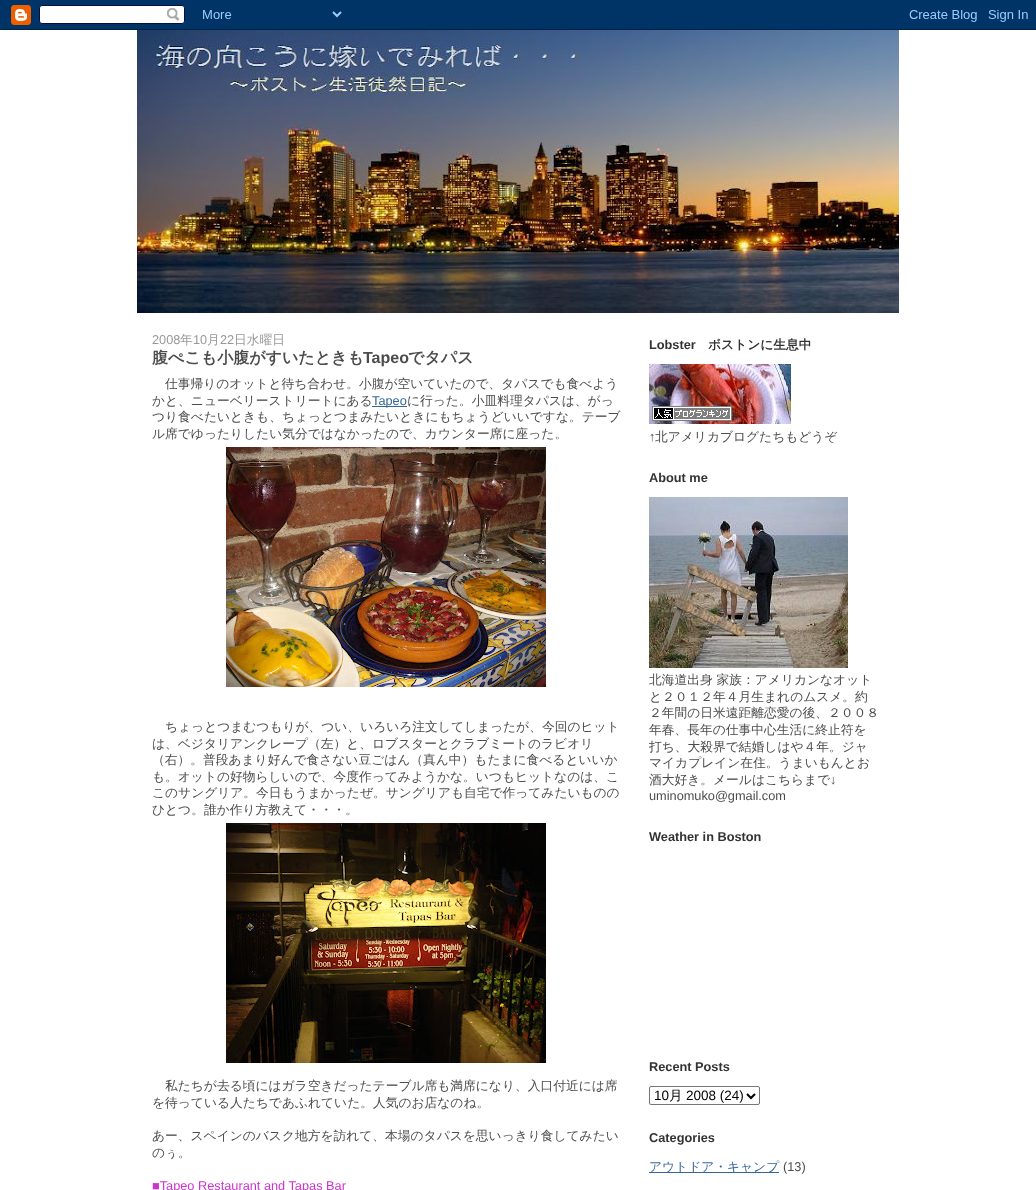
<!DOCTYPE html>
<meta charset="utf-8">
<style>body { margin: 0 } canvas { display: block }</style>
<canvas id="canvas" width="1036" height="1190"></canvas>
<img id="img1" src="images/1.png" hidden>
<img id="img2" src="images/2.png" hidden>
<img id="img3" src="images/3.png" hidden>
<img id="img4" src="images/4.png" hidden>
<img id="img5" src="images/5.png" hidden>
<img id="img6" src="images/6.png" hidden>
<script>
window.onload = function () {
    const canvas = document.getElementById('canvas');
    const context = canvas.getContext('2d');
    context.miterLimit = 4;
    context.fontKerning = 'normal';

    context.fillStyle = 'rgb(255, 255, 255)';
    context.fillRect(0, 0, 1036, 1190);
    context.drawImage(document.getElementById('img1'), 0, 0, 1036, 30);
    context.drawImage(document.getElementById('img2'), 137, 30, 762, 283);
    context.fillStyle = 'rgb(51, 102, 153)';
    context.fillRect(372, 406, 35, 1);
    context.drawImage(document.getElementById('img3'), 226, 447, 320, 240);
    context.drawImage(document.getElementById('img4'), 226, 823, 320, 240);
    context.drawImage(document.getElementById('img5'), 649, 364, 142, 60);
    context.drawImage(document.getElementById('img6'), 649, 497, 199, 171);
    context.beginPath();
    context.roundRect(649.5, 1086.5, 110, 18, 1.5);
    context.strokeStyle = 'rgb(118, 118, 118)';
    context.stroke();
    context.beginPath();
    context.moveTo(747, 1094);
    context.lineTo(751, 1098);
    context.lineTo(755, 1094);
    context.strokeStyle = 'rgb(0, 0, 0)';
    context.lineWidth = 2;
    context.stroke();
    context.fillRect(649, 1172, 130, 1);
    context.font = '12.75px Liberation Sans';
    context.fillStyle = 'rgb(153, 153, 153)';
    context.fillText('2008', 152, 344);
    context.font = '500 12.75px WenQuanYi Zen Hei';
    context.fillText('年', 180, 344);
    context.font = '12.75px Liberation Sans';
    context.fillText('10', 193, 344);
    context.font = '500 12.75px WenQuanYi Zen Hei';
    context.fillText('月', 207, 344);
    context.font = '12.75px Liberation Sans';
    context.fillText('22', 220, 344);
    context.font = '500 12.75px WenQuanYi Zen Hei';
    context.fillText('日水曜日', 234, 344);
    context.font = 'bold 16px WenQuanYi Zen Hei';
    context.fillStyle = 'rgb(76, 76, 76)';
    context.fillText('腹ぺこも小腹がすいたときも', 152, 363);
    context.font = 'bold 16px Liberation Sans';
    context.fillText('Tapeo', 363, 363);
    context.font = 'bold 16px WenQuanYi Zen Hei';
    context.fillText('でタパス', 408, 363);
    context.font = '500 12.75px WenQuanYi Zen Hei';
    context.fillText('仕事帰りのオットと待ち合わせ。小腹が空いていたので、タパスでも食べよう', 165, 388);
    context.fillText('かと、ニューベリーストリートにある', 152, 405);
    context.font = '12.75px Liberation Sans';
    context.fillStyle = 'rgb(51, 102, 153)';
    context.fillText('Tapeo', 372, 405);
    context.font = '500 12.75px WenQuanYi Zen Hei';
    context.fillStyle = 'rgb(76, 76, 76)';
    context.fillText('に行った。小皿料理タパスは、がっ', 407, 405);
    context.fillText('つり食べたいときも、ちょっとつまみたいときにもちょうどいいですな。テーブ', 152, 421);
    context.fillText('ル席でゆったりしたい気分ではなかったので、カウンター席に座った。', 152, 438);
    context.fillText('ちょっとつまむつもりが、つい、いろいろ注文してしまったが、今回のヒット', 165, 731);
    context.fillText('は、ベジタリアンクレープ（左）と、ロブスターとクラブミートのラビオリ', 152, 748);
    context.fillText('（右）。普段あまり好んで食さない豆ごはん（真ん中）もたまに食べるといいか', 152, 764);
    context.fillText('も。オットの好物らしいので、今度作ってみようかな。いつもヒットなのは、こ', 152, 781);
    context.fillText('このサングリア。今日もうまかったぜ。サングリアも自宅で作ってみたいものの', 152, 797);
    context.fillText('ひとつ。誰か作り方教えて・・・。', 152, 814);
    context.fillText('私たちが去る頃にはガラ空きだったテーブル席も満席になり、入口付近には席', 165, 1090);
    context.fillText('を待っている人たちであふれていた。人気のお店なのね。', 152, 1107);
    context.fillText('あー、スペインのバスク地方を訪れて、本場のタパスを思いっきり食してみたい', 152, 1140);
    context.fillText('のぅ。', 152, 1157);
    context.font = '12.75px Liberation Sans';
    context.fillStyle = 'rgb(204, 51, 204)';
    context.fillText('■Tapeo Restaurant and Tapas Bar', 152, 1190);
    context.font = 'bold 12.75px Liberation Sans';
    context.fillStyle = 'rgb(51, 51, 51)';
    context.fillText('Lobster', 649, 349);
    context.font = 'bold 12.75px WenQuanYi Zen Hei';
    context.fillText('ボストンに生息中', 708, 349);
    context.font = '12.75px Liberation Sans';
    context.fillStyle = 'rgb(76, 76, 76)';
    context.fillText('↑', 649, 441);
    context.font = '500 12.75px WenQuanYi Zen Hei';
    context.fillText('北アメリカブログたちもどうぞ', 655, 441);
    context.font = 'bold 12.75px Liberation Sans';
    context.fillStyle = 'rgb(51, 51, 51)';
    context.fillText('About me', 649, 482);
    context.font = '500 12.75px WenQuanYi Zen Hei';
    context.fillStyle = 'rgb(76, 76, 76)';
    context.fillText('北海道出身 家族：アメリカンなオット', 649, 684);
    context.fillText('と２０１２年４月生まれのムスメ。約', 649, 701);
    context.fillText('２年間の日米遠距離恋愛の後、２００８', 649, 717);
    context.fillText('年春、長年の仕事中心生活に終止符を', 649, 734);
    context.fillText('打ち、大殺界で結婚しはや４年。ジャ', 649, 751);
    context.fillText('マイカプレイン在住。うまいもんとお', 649, 767);
    context.fillText('酒大好き。メールはこちらまで', 649, 784);
    context.font = '12.75px Liberation Sans';
    context.fillText('↓', 830, 784);
    context.fillText('uminomuko@gmail.com', 649, 800);
    context.font = 'bold 12.75px Liberation Sans';
    context.fillStyle = 'rgb(51, 51, 51)';
    context.fillText('Weather in Boston', 649, 841);
    context.fillText('Recent Posts', 649, 1071);
    context.font = '13.5px Liberation Sans';
    context.fillStyle = 'rgb(0, 0, 0)';
    context.fillText('10', 654, 1100);
    context.font = '500 13.5px WenQuanYi Zen Hei';
    context.fillText('月', 669, 1100);
    context.font = '13.5px Liberation Sans';
    context.fillText('2008 (24)', 686, 1100);
    context.font = 'bold 12.75px Liberation Sans';
    context.fillStyle = 'rgb(51, 51, 51)';
    context.fillText('Categories', 649, 1142);
    context.font = '500 12.75px WenQuanYi Zen Hei';
    context.fillStyle = 'rgb(51, 102, 153)';
    context.fillText('アウトドア・キャンプ', 649, 1171);
    context.font = '12.75px Liberation Sans';
    context.fillStyle = 'rgb(76, 76, 76)';
    context.fillText('(13)', 783, 1171);
};
</script>
